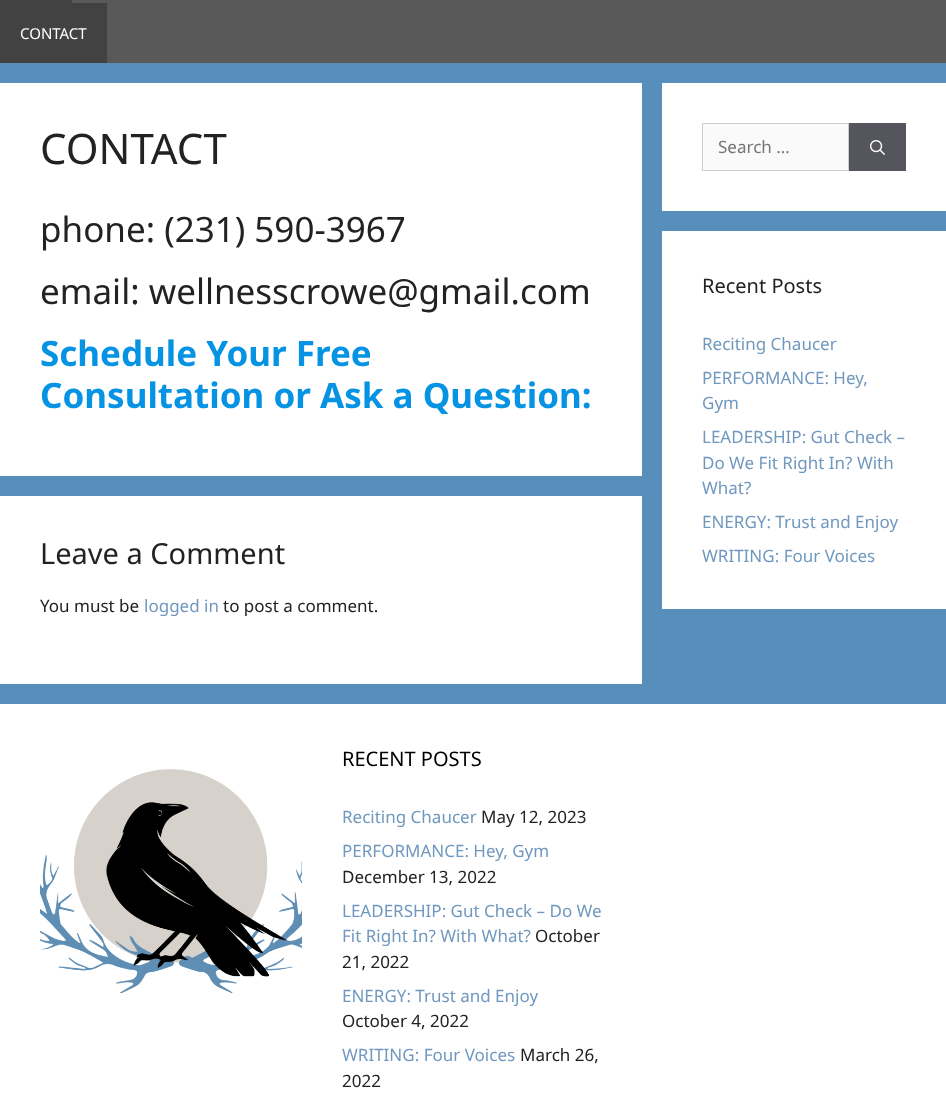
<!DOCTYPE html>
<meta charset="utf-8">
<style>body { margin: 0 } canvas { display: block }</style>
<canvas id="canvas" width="946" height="1096"></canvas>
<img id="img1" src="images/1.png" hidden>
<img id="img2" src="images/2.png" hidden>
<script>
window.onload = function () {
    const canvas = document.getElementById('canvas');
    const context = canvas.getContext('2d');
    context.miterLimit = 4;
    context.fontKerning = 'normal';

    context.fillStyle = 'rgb(88, 142, 188)';
    context.fillRect(0, 0, 946, 1096);
    context.fillStyle = 'rgb(89, 89, 89)';
    context.fillRect(72, 0, 874, 63);
    context.fillStyle = 'rgb(66, 66, 66)';
    context.fillRect(0, 0, 72, 3);
    context.fillRect(0, 3, 107, 60);
    context.fillStyle = 'rgb(255, 255, 255)';
    context.fillRect(0, 83, 642, 393);
    context.fillRect(0, 496, 642, 188);
    context.fillRect(662, 83, 284, 128);
    context.fillStyle = 'rgb(250, 250, 250)';
    context.beginPath();
    context.rect(702.5, 123.5, 146, 47);
    context.fill();
    context.strokeStyle = 'rgb(204, 204, 204)';
    context.stroke();
    context.fillStyle = 'rgb(85, 85, 94)';
    context.fillRect(849, 123, 57, 48);
    context.drawImage(document.getElementById('img1'), 870, 140, 15, 15);
    context.fillStyle = 'rgb(255, 255, 255)';
    context.fillRect(662, 231, 284, 378);
    context.fillRect(0, 704, 946, 392);
    context.drawImage(document.getElementById('img2'), 40, 769, 262, 224);
    context.font = '15px Noto Sans';
    context.fillText('CONTACT', 20, 39);
    context.font = '42px Noto Sans';
    context.fillStyle = 'rgb(34, 34, 34)';
    context.fillText('CONTACT', 40, 164);
    context.font = '35px Noto Sans';
    context.fillText('phone: (231) 590-3967', 40, 242);
    context.fillText('email: wellnesscrowe@gmail.com', 40, 304);
    context.font = 'bold 35px Noto Sans';
    context.fillStyle = 'rgb(6, 147, 227)';
    context.fillText('Schedule Your Free', 40, 366);
    context.fillText('Consultation or Ask a Question:', 40, 408);
    context.font = '29px Noto Sans';
    context.fillStyle = 'rgb(34, 34, 34)';
    context.fillText('Leave a Comment', 40, 564);
    context.font = '17px Noto Sans';
    context.fillText('You must be', 40, 612);
    context.fillStyle = 'rgb(112, 152, 191)';
    context.fillText('logged in', 144, 612);
    context.fillStyle = 'rgb(34, 34, 34)';
    context.fillText('to post a comment.', 223, 612);
    context.fillStyle = 'rgb(117, 117, 117)';
    context.fillText('Search …', 718, 153);
    context.font = '20px Noto Sans';
    context.fillStyle = 'rgb(34, 34, 34)';
    context.fillText('Recent Posts', 702, 293);
    context.font = '17px Noto Sans';
    context.fillStyle = 'rgb(112, 152, 191)';
    context.fillText('Reciting Chaucer', 702, 350);
    context.fillText('PERFORMANCE: Hey,', 702, 384);
    context.fillText('Gym', 702, 409);
    context.fillText('LEADERSHIP: Gut Check –', 702, 443);
    context.fillText('Do We Fit Right In? With', 702, 469);
    context.fillText('What?', 702, 494);
    context.fillText('ENERGY: Trust and Enjoy', 702, 528);
    context.fillText('WRITING: Four Voices', 702, 562);
    context.font = '20px Noto Sans';
    context.fillStyle = 'rgb(0, 0, 0)';
    context.fillText('RECENT POSTS', 342, 766);
    context.font = '17px Noto Sans';
    context.fillStyle = 'rgb(112, 152, 191)';
    context.fillText('Reciting Chaucer', 342, 823);
    context.fillStyle = 'rgb(34, 34, 34)';
    context.fillText('May 12, 2023', 481, 823);
    context.fillStyle = 'rgb(112, 152, 191)';
    context.fillText('PERFORMANCE: Hey, Gym', 342, 857);
    context.fillStyle = 'rgb(34, 34, 34)';
    context.fillText('December 13, 2022', 342, 883);
    context.fillStyle = 'rgb(112, 152, 191)';
    context.fillText('LEADERSHIP: Gut Check – Do We', 342, 917);
    context.fillText('Fit Right In? With What?', 342, 942);
    context.fillStyle = 'rgb(34, 34, 34)';
    context.fillText('October', 535, 942);
    context.fillText('21, 2022', 342, 968);
    context.fillStyle = 'rgb(112, 152, 191)';
    context.fillText('ENERGY: Trust and Enjoy', 342, 1002);
    context.fillStyle = 'rgb(34, 34, 34)';
    context.fillText('October 4, 2022', 342, 1027);
    context.fillStyle = 'rgb(112, 152, 191)';
    context.fillText('WRITING: Four Voices', 342, 1061);
    context.fillStyle = 'rgb(34, 34, 34)';
    context.fillText('March 26,', 520, 1061);
    context.fillText('2022', 342, 1087);
};
</script>
